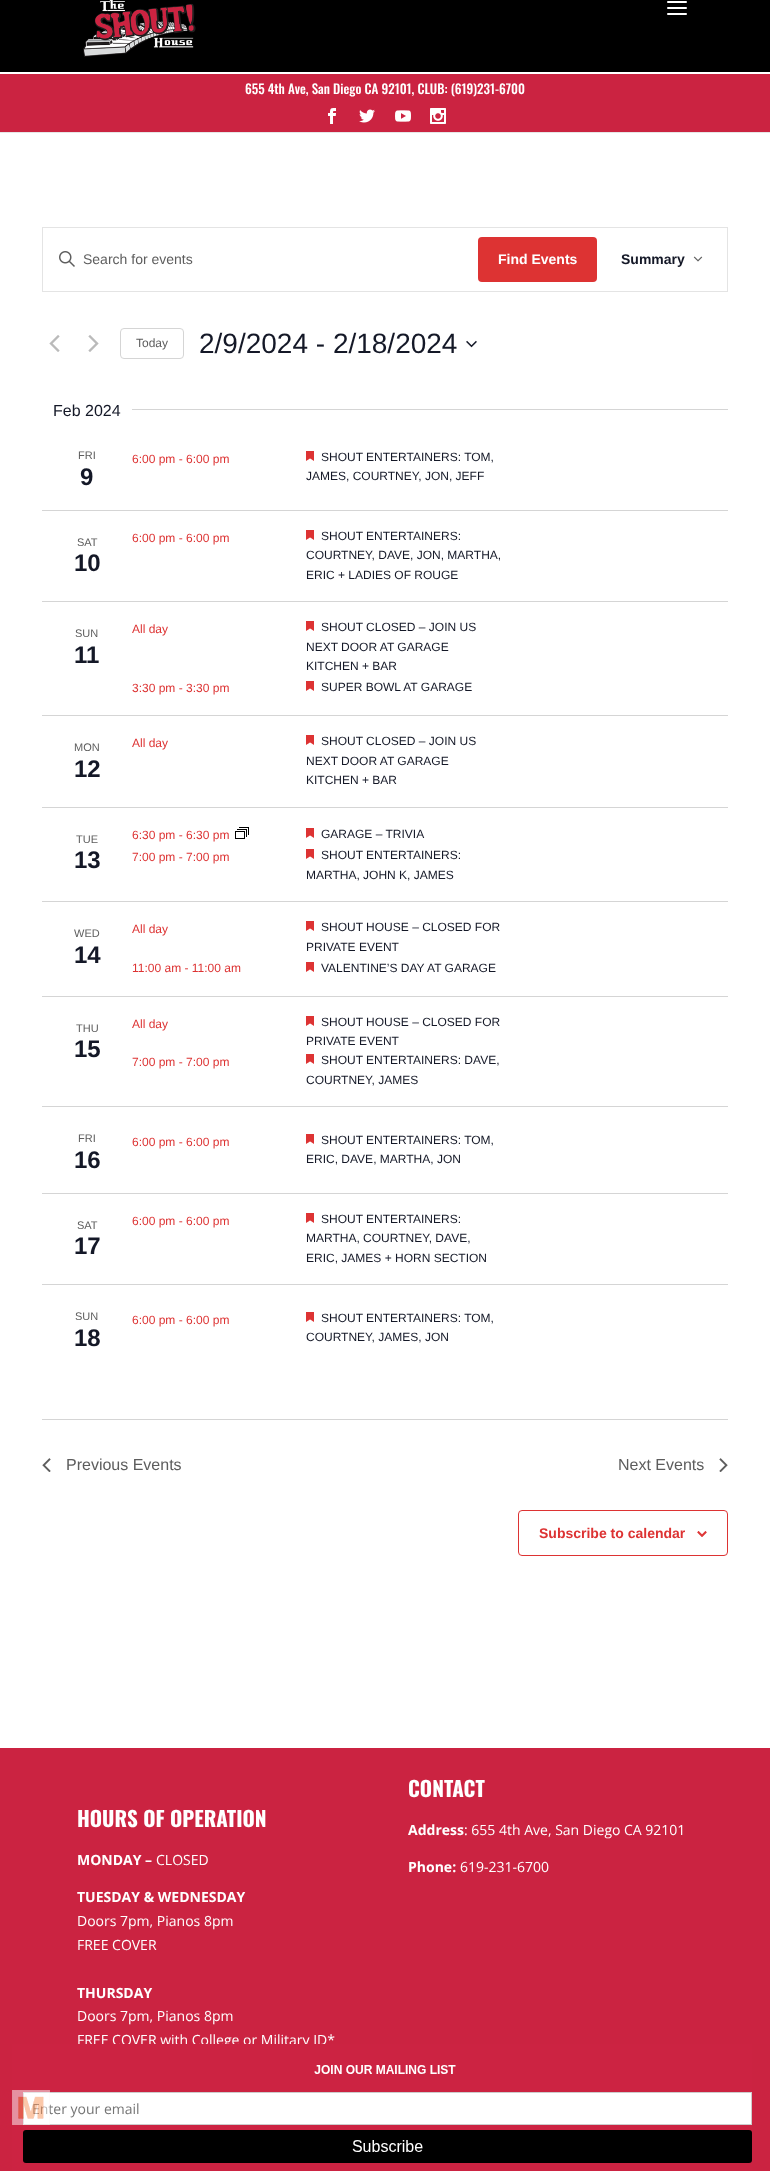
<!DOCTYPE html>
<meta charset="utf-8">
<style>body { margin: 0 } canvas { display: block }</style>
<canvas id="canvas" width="770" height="2171"></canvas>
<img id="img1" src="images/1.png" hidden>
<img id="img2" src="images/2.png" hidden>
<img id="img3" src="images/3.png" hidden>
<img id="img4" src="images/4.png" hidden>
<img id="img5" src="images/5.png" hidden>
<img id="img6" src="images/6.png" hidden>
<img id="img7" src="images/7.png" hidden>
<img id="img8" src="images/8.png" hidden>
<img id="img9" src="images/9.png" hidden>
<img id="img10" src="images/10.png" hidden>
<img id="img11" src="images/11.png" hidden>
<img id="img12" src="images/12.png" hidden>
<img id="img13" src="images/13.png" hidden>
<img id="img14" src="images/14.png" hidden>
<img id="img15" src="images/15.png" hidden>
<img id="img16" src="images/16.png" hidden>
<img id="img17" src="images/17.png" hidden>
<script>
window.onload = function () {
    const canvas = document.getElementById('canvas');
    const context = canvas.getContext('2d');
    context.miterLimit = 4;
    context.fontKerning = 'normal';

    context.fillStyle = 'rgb(203, 35, 65)';
    context.fillRect(0, 0, 770, 2171);
    context.fillStyle = 'rgb(230, 230, 230)';
    context.fillRect(0, 132, 770, 1);
    context.fillStyle = 'rgb(0, 0, 0)';
    context.fillRect(0, 0, 770, 72);
    context.drawImage(document.getElementById('img1'), 83, 0, 113, 57);
    context.drawImage(document.getElementById('img2'), 667, 1, 20, 14);
    context.fillStyle = 'rgb(255, 255, 255)';
    context.fillRect(0, 72, 770, 2);
    context.drawImage(document.getElementById('img3'), 328, 108, 8, 16);
    context.drawImage(document.getElementById('img4'), 359, 109, 16, 14);
    context.drawImage(document.getElementById('img5'), 395, 110, 16, 12);
    context.drawImage(document.getElementById('img6'), 430, 108, 16, 16);
    context.fillRect(0, 133, 770, 1615);
    context.strokeStyle = 'rgb(228, 228, 228)';
    context.strokeRect(42.5, 227.5, 685, 64);
    context.drawImage(document.getElementById('img7'), 59, 251, 16, 16);
    context.fillStyle = 'rgb(221, 51, 51)';
    context.beginPath();
    context.roundRect(478, 237, 119, 45, 4);
    context.fill();
    context.drawImage(document.getElementById('img8'), 693, 256, 10, 6);
    context.drawImage(document.getElementById('img9'), 49, 335, 11, 17);
    context.drawImage(document.getElementById('img10'), 88, 335, 11, 17);
    context.beginPath();
    context.roundRect(120.5, 328.5, 63, 30, 3.5);
    context.strokeStyle = 'rgb(213, 213, 213)';
    context.stroke();
    context.drawImage(document.getElementById('img11'), 466, 340, 11, 8);
    context.fillStyle = 'rgb(213, 213, 213)';
    context.fillRect(132, 409, 596, 1);
    context.fillRect(42, 510, 686, 1);
    context.drawImage(document.getElementById('img12'), 306, 451, 8, 10);
    context.fillRect(42, 601, 686, 1);
    context.drawImage(document.getElementById('img12'), 306, 530, 8, 10);
    context.fillRect(42, 715, 686, 1);
    context.drawImage(document.getElementById('img12'), 306, 621, 8, 10);
    context.drawImage(document.getElementById('img12'), 306, 681, 8, 10);
    context.fillRect(42, 807, 686, 1);
    context.drawImage(document.getElementById('img12'), 306, 735, 8, 10);
    context.fillRect(42, 901, 686, 1);
    context.drawImage(document.getElementById('img13'), 235, 827, 14, 12);
    context.drawImage(document.getElementById('img12'), 306, 828, 8, 10);
    context.drawImage(document.getElementById('img12'), 306, 849, 8, 10);
    context.fillRect(42, 996, 686, 1);
    context.drawImage(document.getElementById('img12'), 306, 921, 8, 10);
    context.drawImage(document.getElementById('img12'), 306, 962, 8, 10);
    context.fillRect(42, 1106, 686, 1);
    context.drawImage(document.getElementById('img12'), 306, 1016, 8, 10);
    context.drawImage(document.getElementById('img12'), 306, 1054, 8, 10);
    context.fillRect(42, 1193, 686, 1);
    context.drawImage(document.getElementById('img12'), 306, 1134, 8, 10);
    context.fillRect(42, 1284, 686, 1);
    context.drawImage(document.getElementById('img12'), 306, 1213, 8, 10);
    context.drawImage(document.getElementById('img12'), 306, 1312, 8, 10);
    context.fillRect(42, 1419, 686, 1);
    context.drawImage(document.getElementById('img14'), 42, 1458, 9, 14);
    context.drawImage(document.getElementById('img15'), 719, 1458, 9, 14);
    context.beginPath();
    context.roundRect(518.5, 1510.5, 209, 45, 3.5);
    context.strokeStyle = 'rgb(221, 51, 51)';
    context.stroke();
    context.drawImage(document.getElementById('img16'), 697, 1531, 10, 6);
    context.font = '500 13px Oswald';
    context.fillStyle = 'rgb(255, 255, 255)';
    context.fillText('655 4th Ave, San Diego CA 92101, CLUB: (619)231-6700', 245, 94);
    context.font = '14px Liberation Sans';
    context.fillStyle = 'rgb(93, 93, 93)';
    context.fillText('Search for events', 83, 264);
    context.font = 'bold 14px Liberation Sans';
    context.fillStyle = 'rgb(255, 255, 255)';
    context.fillText('Find Events', 498, 264);
    context.fillStyle = 'rgb(20, 24, 39)';
    context.fillText('Summary', 621, 264);
    context.font = '12px Liberation Sans';
    context.fillStyle = 'rgb(93, 93, 93)';
    context.fillText('Today', 136, 347);
    context.font = '28px Liberation Sans';
    context.fillStyle = 'rgb(20, 24, 39)';
    context.fillText('2/9/2024 - 2/18/2024', 199, 353);
    context.font = '16px Liberation Sans';
    context.fillText('Feb 2024', 53, 416);
    context.font = '11px Liberation Sans';
    context.fillStyle = 'rgb(93, 93, 93)';
    context.fillText('FRI', 78, 459);
    context.font = 'bold 24px Liberation Sans';
    context.fillStyle = 'rgb(20, 24, 39)';
    context.fillText('9', 80, 485);
    context.font = '12px Liberation Sans';
    context.fillStyle = 'rgb(221, 51, 51)';
    context.fillText('6:00 pm - 6:00 pm', 132, 463);
    context.fillStyle = 'rgb(20, 24, 39)';
    context.fillText('SHOUT ENTERTAINERS: TOM,', 321, 461);
    context.fillText('JAMES, COURTNEY, JON, JEFF', 306, 480);
    context.font = '11px Liberation Sans';
    context.fillStyle = 'rgb(93, 93, 93)';
    context.fillText('SAT', 77, 546);
    context.font = 'bold 24px Liberation Sans';
    context.fillStyle = 'rgb(20, 24, 39)';
    context.fillText('10', 74, 571);
    context.font = '12px Liberation Sans';
    context.fillStyle = 'rgb(221, 51, 51)';
    context.fillText('6:00 pm - 6:00 pm', 132, 542);
    context.fillStyle = 'rgb(20, 24, 39)';
    context.fillText('SHOUT ENTERTAINERS:', 321, 540);
    context.fillText('COURTNEY, DAVE, JON, MARTHA,', 306, 559);
    context.fillText('ERIC + LADIES OF ROUGE', 306, 579);
    context.font = '11px Liberation Sans';
    context.fillStyle = 'rgb(93, 93, 93)';
    context.fillText('SUN', 75, 637);
    context.font = 'bold 24px Liberation Sans';
    context.fillStyle = 'rgb(20, 24, 39)';
    context.fillText('11', 74, 663);
    context.font = '12px Liberation Sans';
    context.fillStyle = 'rgb(221, 51, 51)';
    context.fillText('All day', 132, 633);
    context.fillStyle = 'rgb(20, 24, 39)';
    context.fillText('SHOUT CLOSED – JOIN US', 321, 631);
    context.fillText('NEXT DOOR AT GARAGE', 306, 651);
    context.fillText('KITCHEN + BAR', 306, 670);
    context.fillStyle = 'rgb(221, 51, 51)';
    context.fillText('3:30 pm - 3:30 pm', 132, 692);
    context.fillStyle = 'rgb(20, 24, 39)';
    context.fillText('SUPER BOWL AT GARAGE', 321, 691);
    context.font = '11px Liberation Sans';
    context.fillStyle = 'rgb(93, 93, 93)';
    context.fillText('MON', 74, 751);
    context.font = 'bold 24px Liberation Sans';
    context.fillStyle = 'rgb(20, 24, 39)';
    context.fillText('12', 74, 777);
    context.font = '12px Liberation Sans';
    context.fillStyle = 'rgb(221, 51, 51)';
    context.fillText('All day', 132, 747);
    context.fillStyle = 'rgb(20, 24, 39)';
    context.fillText('SHOUT CLOSED – JOIN US', 321, 745);
    context.fillText('NEXT DOOR AT GARAGE', 306, 765);
    context.fillText('KITCHEN + BAR', 306, 784);
    context.font = '11px Liberation Sans';
    context.fillStyle = 'rgb(93, 93, 93)';
    context.fillText('TUE', 76, 843);
    context.font = 'bold 24px Liberation Sans';
    context.fillStyle = 'rgb(20, 24, 39)';
    context.fillText('13', 74, 868);
    context.font = '12px Liberation Sans';
    context.fillStyle = 'rgb(221, 51, 51)';
    context.fillText('6:30 pm - 6:30 pm', 132, 839);
    context.fillStyle = 'rgb(20, 24, 39)';
    context.fillText('GARAGE – TRIVIA', 321, 838);
    context.fillStyle = 'rgb(221, 51, 51)';
    context.fillText('7:00 pm - 7:00 pm', 132, 861);
    context.fillStyle = 'rgb(20, 24, 39)';
    context.fillText('SHOUT ENTERTAINERS:', 321, 859);
    context.fillText('MARTHA, JOHN K, JAMES', 306, 879);
    context.font = '11px Liberation Sans';
    context.fillStyle = 'rgb(93, 93, 93)';
    context.fillText('WED', 74, 937);
    context.font = 'bold 24px Liberation Sans';
    context.fillStyle = 'rgb(20, 24, 39)';
    context.fillText('14', 74, 963);
    context.font = '12px Liberation Sans';
    context.fillStyle = 'rgb(221, 51, 51)';
    context.fillText('All day', 132, 933);
    context.fillStyle = 'rgb(20, 24, 39)';
    context.fillText('SHOUT HOUSE – CLOSED FOR', 321, 931);
    context.fillText('PRIVATE EVENT', 306, 951);
    context.fillStyle = 'rgb(221, 51, 51)';
    context.fillText('11:00 am - 11:00 am', 132, 972);
    context.fillStyle = 'rgb(20, 24, 39)';
    context.fillText('VALENTINE’S DAY AT GARAGE', 321, 972);
    context.font = '11px Liberation Sans';
    context.fillStyle = 'rgb(93, 93, 93)';
    context.fillText('THU', 76, 1032);
    context.font = 'bold 24px Liberation Sans';
    context.fillStyle = 'rgb(20, 24, 39)';
    context.fillText('15', 74, 1057);
    context.font = '12px Liberation Sans';
    context.fillStyle = 'rgb(221, 51, 51)';
    context.fillText('All day', 132, 1028);
    context.fillStyle = 'rgb(20, 24, 39)';
    context.fillText('SHOUT HOUSE – CLOSED FOR', 321, 1026);
    context.fillText('PRIVATE EVENT', 306, 1045);
    context.fillStyle = 'rgb(221, 51, 51)';
    context.fillText('7:00 pm - 7:00 pm', 132, 1066);
    context.fillStyle = 'rgb(20, 24, 39)';
    context.fillText('SHOUT ENTERTAINERS: DAVE,', 321, 1064);
    context.fillText('COURTNEY, JAMES', 306, 1084);
    context.font = '11px Liberation Sans';
    context.fillStyle = 'rgb(93, 93, 93)';
    context.fillText('FRI', 78, 1142);
    context.font = 'bold 24px Liberation Sans';
    context.fillStyle = 'rgb(20, 24, 39)';
    context.fillText('16', 74, 1168);
    context.font = '12px Liberation Sans';
    context.fillStyle = 'rgb(221, 51, 51)';
    context.fillText('6:00 pm - 6:00 pm', 132, 1146);
    context.fillStyle = 'rgb(20, 24, 39)';
    context.fillText('SHOUT ENTERTAINERS: TOM,', 321, 1144);
    context.fillText('ERIC, DAVE, MARTHA, JON', 306, 1163);
    context.font = '11px Liberation Sans';
    context.fillStyle = 'rgb(93, 93, 93)';
    context.fillText('SAT', 77, 1229);
    context.font = 'bold 24px Liberation Sans';
    context.fillStyle = 'rgb(20, 24, 39)';
    context.fillText('17', 74, 1254);
    context.font = '12px Liberation Sans';
    context.fillStyle = 'rgb(221, 51, 51)';
    context.fillText('6:00 pm - 6:00 pm', 132, 1225);
    context.fillStyle = 'rgb(20, 24, 39)';
    context.fillText('SHOUT ENTERTAINERS:', 321, 1223);
    context.fillText('MARTHA, COURTNEY, DAVE,', 306, 1242);
    context.fillText('ERIC, JAMES + HORN SECTION', 306, 1262);
    context.font = '11px Liberation Sans';
    context.fillStyle = 'rgb(93, 93, 93)';
    context.fillText('SUN', 75, 1320);
    context.font = 'bold 24px Liberation Sans';
    context.fillStyle = 'rgb(20, 24, 39)';
    context.fillText('18', 74, 1346);
    context.font = '12px Liberation Sans';
    context.fillStyle = 'rgb(221, 51, 51)';
    context.fillText('6:00 pm - 6:00 pm', 132, 1324);
    context.fillStyle = 'rgb(20, 24, 39)';
    context.fillText('SHOUT ENTERTAINERS: TOM,', 321, 1322);
    context.fillText('COURTNEY, JAMES, JON', 306, 1341);
    context.font = '16px Liberation Sans';
    context.fillStyle = 'rgb(93, 93, 93)';
    context.fillText('Previous Events', 66, 1470);
    context.fillText('Next Events', 618, 1470);
    context.font = 'bold 14px Liberation Sans';
    context.fillStyle = 'rgb(221, 51, 51)';
    context.fillText('Subscribe to calendar', 539, 1538);
    context.font = 'bold 21px Oswald';
    context.fillStyle = 'rgb(255, 255, 255)';
    context.fillText('HOURS OF OPERATION', 77, 1827);
    context.font = 'bold 14px Open Sans';
    context.fillText('MONDAY –', 77, 1865);
    context.font = '14px Open Sans';
    context.fillText('CLOSED', 156, 1865);
    context.font = 'bold 14px Open Sans';
    context.fillText('TUESDAY & WEDNESDAY', 77, 1902);
    context.font = '14px Open Sans';
    context.fillText('Doors 7pm, Pianos 8pm', 77, 1926);
    context.fillText('FREE COVER', 77, 1950);
    context.font = 'bold 14px Open Sans';
    context.fillText('THURSDAY', 77, 1998);
    context.font = '14px Open Sans';
    context.fillText('Doors 7pm, Pianos 8pm', 77, 2021);
    context.fillText('FREE COVER with College or Military ID*', 77, 2045);
    context.font = 'bold 21px Oswald';
    context.fillText('CONTACT', 408, 1797);
    context.font = 'bold 14px Open Sans';
    context.fillText('Address', 408, 1835);
    context.font = '14px Open Sans';
    context.fillText(': 655 4th Ave, San Diego CA 92101', 464, 1835);
    context.font = 'bold 14px Open Sans';
    context.fillText('Phone:', 408, 1872);
    context.font = '14px Open Sans';
    context.fillText('619-231-6700', 460, 1872);
    context.drawImage(document.getElementById('img17'), 12, 2044, 740, 127);
};
</script>
